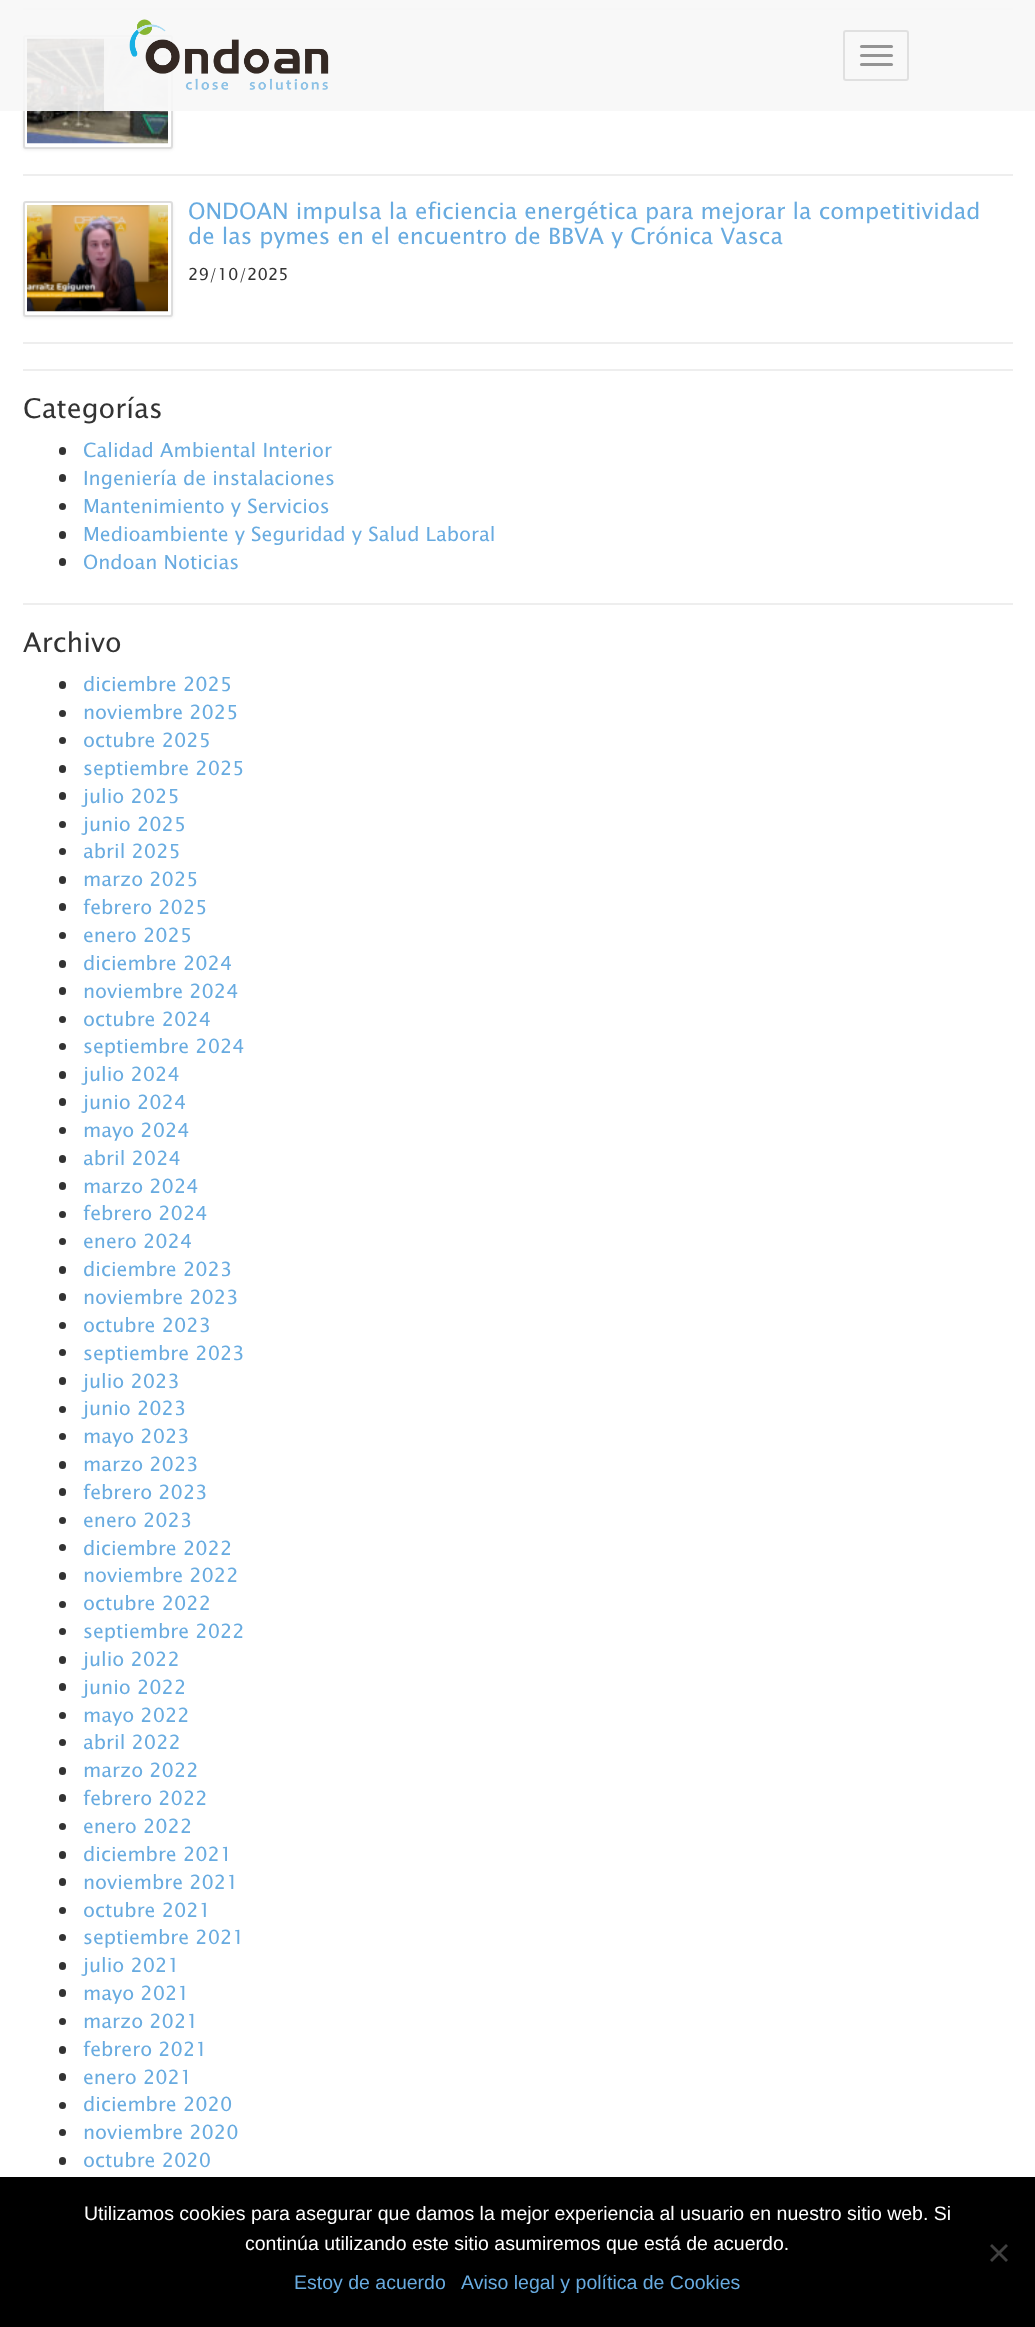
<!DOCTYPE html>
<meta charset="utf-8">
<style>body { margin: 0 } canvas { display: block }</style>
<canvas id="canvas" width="1035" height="2327"></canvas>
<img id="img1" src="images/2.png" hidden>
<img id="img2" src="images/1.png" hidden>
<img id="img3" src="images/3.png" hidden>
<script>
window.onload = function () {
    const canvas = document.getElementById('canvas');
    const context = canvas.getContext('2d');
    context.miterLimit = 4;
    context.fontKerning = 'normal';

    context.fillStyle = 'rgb(255, 255, 255)';
    context.fillRect(0, 0, 1035, 2327);
    context.fillStyle = 'rgb(238, 238, 238)';
    context.fillRect(23, 8, 990, 2);
    context.fillStyle = 'rgba(0, 0, 0, 0.07)';
    context.filter = 'blur(1.5px)';
    context.beginPath();
    context.roundRect(23, 36, 150, 114, 3);
    context.fill();
    context.filter = 'none';
    context.fillStyle = 'rgb(255, 255, 255)';
    context.beginPath();
    context.roundRect(24, 36, 148, 112, 2);
    context.fill();
    context.strokeStyle = 'rgb(221, 221, 221)';
    context.lineWidth = 2;
    context.stroke();
    context.drawImage(document.getElementById('img1'), 27, 38, 141, 106);
    context.fillStyle = 'rgba(247, 247, 247, 0.9)';
    context.fillRect(0, 0, 1035, 111);
    context.fillRect(104, 38, 64, 73);
    context.drawImage(document.getElementById('img2'), 129, 19, 200, 71);
    context.beginPath();
    context.roundRect(844, 31, 64, 49, 2);
    context.strokeStyle = 'rgb(224, 224, 224)';
    context.stroke();
    context.fillStyle = 'rgb(147, 147, 147)';
    context.beginPath();
    context.roundRect(860, 45, 33, 3, 1.5);
    context.fill();
    context.fillStyle = 'rgb(148, 148, 148)';
    context.beginPath();
    context.roundRect(860, 54, 33, 3, 1.5);
    context.fill();
    context.beginPath();
    context.roundRect(860, 63, 33, 3, 1.5);
    context.fill();
    context.fillStyle = 'rgb(238, 238, 238)';
    context.fillRect(23, 174, 990, 2);
    context.fillStyle = 'rgba(0, 0, 0, 0.07)';
    context.filter = 'blur(1.5px)';
    context.beginPath();
    context.roundRect(23, 203, 150, 115, 3);
    context.fill();
    context.filter = 'none';
    context.fillStyle = 'rgb(255, 255, 255)';
    context.beginPath();
    context.roundRect(24, 202, 148, 114, 2);
    context.fill();
    context.strokeStyle = 'rgb(221, 221, 221)';
    context.stroke();
    context.drawImage(document.getElementById('img3'), 27, 205, 141, 107);
    context.fillStyle = 'rgb(238, 238, 238)';
    context.fillRect(23, 342, 990, 2);
    context.fillRect(23, 369, 990, 2);
    context.fillStyle = 'rgb(51, 51, 51)';
    context.beginPath();
    context.roundRect(59, 447, 7, 8, 3.5);
    context.fill();
    context.beginPath();
    context.roundRect(59, 474, 7, 8, 3.5);
    context.fill();
    context.beginPath();
    context.arc(62.5, 506.5, 3.5, 0, 2 * Math.PI);
    context.fill();
    context.beginPath();
    context.roundRect(59, 531, 7, 8, 3.5);
    context.fill();
    context.beginPath();
    context.roundRect(59, 558, 7, 8, 3.5);
    context.fill();
    context.fillStyle = 'rgb(238, 238, 238)';
    context.fillRect(23, 603, 990, 2);
    context.fillStyle = 'rgb(51, 51, 51)';
    context.beginPath();
    context.roundRect(59, 681, 7, 8, 3.5);
    context.fill();
    context.beginPath();
    context.arc(62.5, 713.5, 3.5, 0, 2 * Math.PI);
    context.fill();
    context.beginPath();
    context.arc(62.5, 740.5, 3.5, 0, 2 * Math.PI);
    context.fill();
    context.beginPath();
    context.roundRect(59, 765, 7, 8, 3.5);
    context.fill();
    context.beginPath();
    context.roundRect(59, 792, 7, 8, 3.5);
    context.fill();
    context.beginPath();
    context.arc(62.5, 824.5, 3.5, 0, 2 * Math.PI);
    context.fill();
    context.beginPath();
    context.arc(62.5, 851.5, 3.5, 0, 2 * Math.PI);
    context.fill();
    context.beginPath();
    context.roundRect(59, 876, 7, 8, 3.5);
    context.fill();
    context.beginPath();
    context.roundRect(59, 903, 7, 8, 3.5);
    context.fill();
    context.beginPath();
    context.arc(62.5, 935.5, 3.5, 0, 2 * Math.PI);
    context.fill();
    context.beginPath();
    context.roundRect(59, 960, 7, 8, 3.5);
    context.fill();
    context.beginPath();
    context.roundRect(59, 987, 7, 8, 3.5);
    context.fill();
    context.beginPath();
    context.arc(62.5, 1019.5, 3.5, 0, 2 * Math.PI);
    context.fill();
    context.beginPath();
    context.arc(62.5, 1046.5, 3.5, 0, 2 * Math.PI);
    context.fill();
    context.beginPath();
    context.roundRect(59, 1071, 7, 8, 3.5);
    context.fill();
    context.beginPath();
    context.roundRect(59, 1098, 7, 8, 3.5);
    context.fill();
    context.beginPath();
    context.arc(62.5, 1130.5, 3.5, 0, 2 * Math.PI);
    context.fill();
    context.beginPath();
    context.roundRect(59, 1155, 7, 8, 3.5);
    context.fill();
    context.beginPath();
    context.roundRect(59, 1182, 7, 8, 3.5);
    context.fill();
    context.beginPath();
    context.arc(62.5, 1214.5, 3.5, 0, 2 * Math.PI);
    context.fill();
    context.beginPath();
    context.arc(62.5, 1241.5, 3.5, 0, 2 * Math.PI);
    context.fill();
    context.beginPath();
    context.roundRect(59, 1266, 7, 8, 3.5);
    context.fill();
    context.beginPath();
    context.roundRect(59, 1293, 7, 8, 3.5);
    context.fill();
    context.beginPath();
    context.arc(62.5, 1325.5, 3.5, 0, 2 * Math.PI);
    context.fill();
    context.beginPath();
    context.arc(62.5, 1352.5, 3.5, 0, 2 * Math.PI);
    context.fill();
    context.beginPath();
    context.roundRect(59, 1377, 7, 8, 3.5);
    context.fill();
    context.beginPath();
    context.arc(62.5, 1409.5, 3.5, 0, 2 * Math.PI);
    context.fill();
    context.beginPath();
    context.arc(62.5, 1436.5, 3.5, 0, 2 * Math.PI);
    context.fill();
    context.beginPath();
    context.roundRect(59, 1461, 7, 8, 3.5);
    context.fill();
    context.beginPath();
    context.roundRect(59, 1488, 7, 8, 3.5);
    context.fill();
    context.beginPath();
    context.arc(62.5, 1520.5, 3.5, 0, 2 * Math.PI);
    context.fill();
    context.beginPath();
    context.arc(62.5, 1547.5, 3.5, 0, 2 * Math.PI);
    context.fill();
    context.beginPath();
    context.roundRect(59, 1572, 7, 8, 3.5);
    context.fill();
    context.beginPath();
    context.arc(62.5, 1604.5, 3.5, 0, 2 * Math.PI);
    context.fill();
    context.beginPath();
    context.arc(62.5, 1631.5, 3.5, 0, 2 * Math.PI);
    context.fill();
    context.beginPath();
    context.roundRect(59, 1656, 7, 8, 3.5);
    context.fill();
    context.beginPath();
    context.roundRect(59, 1683, 7, 8, 3.5);
    context.fill();
    context.beginPath();
    context.arc(62.5, 1715.5, 3.5, 0, 2 * Math.PI);
    context.fill();
    context.beginPath();
    context.arc(62.5, 1742.5, 3.5, 0, 2 * Math.PI);
    context.fill();
    context.beginPath();
    context.roundRect(59, 1767, 7, 8, 3.5);
    context.fill();
    context.beginPath();
    context.roundRect(59, 1794, 7, 8, 3.5);
    context.fill();
    context.beginPath();
    context.arc(62.5, 1826.5, 3.5, 0, 2 * Math.PI);
    context.fill();
    context.beginPath();
    context.roundRect(59, 1851, 7, 8, 3.5);
    context.fill();
    context.beginPath();
    context.roundRect(59, 1878, 7, 8, 3.5);
    context.fill();
    context.beginPath();
    context.arc(62.5, 1910.5, 3.5, 0, 2 * Math.PI);
    context.fill();
    context.beginPath();
    context.arc(62.5, 1937.5, 3.5, 0, 2 * Math.PI);
    context.fill();
    context.beginPath();
    context.roundRect(59, 1962, 7, 8, 3.5);
    context.fill();
    context.beginPath();
    context.roundRect(59, 1989, 7, 8, 3.5);
    context.fill();
    context.beginPath();
    context.arc(62.5, 2021.5, 3.5, 0, 2 * Math.PI);
    context.fill();
    context.beginPath();
    context.roundRect(59, 2046, 7, 8, 3.5);
    context.fill();
    context.beginPath();
    context.roundRect(59, 2073, 7, 8, 3.5);
    context.fill();
    context.beginPath();
    context.arc(62.5, 2105.5, 3.5, 0, 2 * Math.PI);
    context.fill();
    context.beginPath();
    context.arc(62.5, 2132.5, 3.5, 0, 2 * Math.PI);
    context.fill();
    context.beginPath();
    context.roundRect(59, 2157, 7, 8, 3.5);
    context.fill();
    context.fillStyle = 'rgb(0, 0, 0)';
    context.fillRect(0, 2177, 1035, 150);
    context.fillStyle = 'rgb(64, 64, 64)';
    context.beginPath();
    context.moveTo(1006, 2244);
    context.lineTo(1008, 2246);
    context.lineTo(992, 2262);
    context.lineTo(990, 2260);
    context.closePath();
    context.fill();
    context.beginPath();
    context.moveTo(990, 2246);
    context.lineTo(992, 2244);
    context.lineTo(1008, 2260);
    context.lineTo(1006, 2262);
    context.closePath();
    context.fill();
    context.font = '22.5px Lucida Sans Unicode';
    context.fillStyle = 'rgb(104, 171, 224)';
    context.fillText('ONDOAN impulsa la eficiencia energética para mejorar la competitividad', 188, 219);
    context.fillText('de las pymes en el encuentro de BBVA y Crónica Vasca', 188, 244);
    context.font = '16.5px Lucida Sans Unicode';
    context.fillStyle = 'rgb(51, 51, 51)';
    context.fillText('29/10/2025', 188, 280);
    context.font = '27px Lucida Sans Unicode';
    context.fillText('Categorías', 23, 418);
    context.font = '19.5px Lucida Sans Unicode';
    context.fillStyle = 'rgb(104, 171, 224)';
    context.fillText('Calidad Ambiental Interior', 83, 457);
    context.fillText('Ingeniería de instalaciones', 83, 485);
    context.fillText('Mantenimiento y Servicios', 83, 513);
    context.fillText('Medioambiente y Seguridad y Salud Laboral', 83, 541);
    context.fillText('Ondoan Noticias', 83, 569);
    context.font = '27px Lucida Sans Unicode';
    context.fillStyle = 'rgb(51, 51, 51)';
    context.fillText('Archivo', 23, 652);
    context.font = '19.5px Lucida Sans Unicode';
    context.fillStyle = 'rgb(104, 171, 224)';
    context.fillText('diciembre 2025', 83, 691);
    context.fillText('noviembre 2025', 83, 719);
    context.fillText('octubre 2025', 83, 747);
    context.fillText('septiembre 2025', 83, 775);
    context.fillText('julio 2025', 83, 803);
    context.fillText('junio 2025', 83, 831);
    context.fillText('abril 2025', 83, 858);
    context.fillText('marzo 2025', 83, 886);
    context.fillText('febrero 2025', 83, 914);
    context.fillText('enero 2025', 83, 942);
    context.fillText('diciembre 2024', 83, 970);
    context.fillText('noviembre 2024', 83, 998);
    context.fillText('octubre 2024', 83, 1026);
    context.fillText('septiembre 2024', 83, 1053);
    context.fillText('julio 2024', 83, 1081);
    context.fillText('junio 2024', 83, 1109);
    context.fillText('mayo 2024', 83, 1137);
    context.fillText('abril 2024', 83, 1165);
    context.fillText('marzo 2024', 83, 1193);
    context.fillText('febrero 2024', 83, 1220);
    context.fillText('enero 2024', 83, 1248);
    context.fillText('diciembre 2023', 83, 1276);
    context.fillText('noviembre 2023', 83, 1304);
    context.fillText('octubre 2023', 83, 1332);
    context.fillText('septiembre 2023', 83, 1360);
    context.fillText('julio 2023', 83, 1388);
    context.fillText('junio 2023', 83, 1415);
    context.fillText('mayo 2023', 83, 1443);
    context.fillText('marzo 2023', 83, 1471);
    context.fillText('febrero 2023', 83, 1499);
    context.fillText('enero 2023', 83, 1527);
    context.fillText('diciembre 2022', 83, 1555);
    context.fillText('noviembre 2022', 83, 1582);
    context.fillText('octubre 2022', 83, 1610);
    context.fillText('septiembre 2022', 83, 1638);
    context.fillText('julio 2022', 83, 1666);
    context.fillText('junio 2022', 83, 1694);
    context.fillText('mayo 2022', 83, 1722);
    context.fillText('abril 2022', 83, 1749);
    context.fillText('marzo 2022', 83, 1777);
    context.fillText('febrero 2022', 83, 1805);
    context.fillText('enero 2022', 83, 1833);
    context.fillText('diciembre 2021', 83, 1861);
    context.fillText('noviembre 2021', 83, 1889);
    context.fillText('octubre 2021', 83, 1917);
    context.fillText('septiembre 2021', 83, 1944);
    context.fillText('julio 2021', 83, 1972);
    context.fillText('mayo 2021', 83, 2000);
    context.fillText('marzo 2021', 83, 2028);
    context.fillText('febrero 2021', 83, 2056);
    context.fillText('enero 2021', 83, 2084);
    context.fillText('diciembre 2020', 83, 2111);
    context.fillText('noviembre 2020', 83, 2139);
    context.fillText('octubre 2020', 83, 2167);
    context.font = '19.5px Liberation Sans';
    context.fillStyle = 'rgb(255, 255, 255)';
    context.fillText('Utilizamos cookies para asegurar que damos la mejor experiencia al usuario en nuestro sitio web. Si', 84, 2220);
    context.fillText('continúa utilizando este sitio asumiremos que está de acuerdo.', 245, 2250);
    context.fillStyle = 'rgb(104, 171, 224)';
    context.fillText('Estoy de acuerdo', 294, 2289);
    context.fillText('Aviso legal y política de Cookies', 461, 2289);
};
</script>
